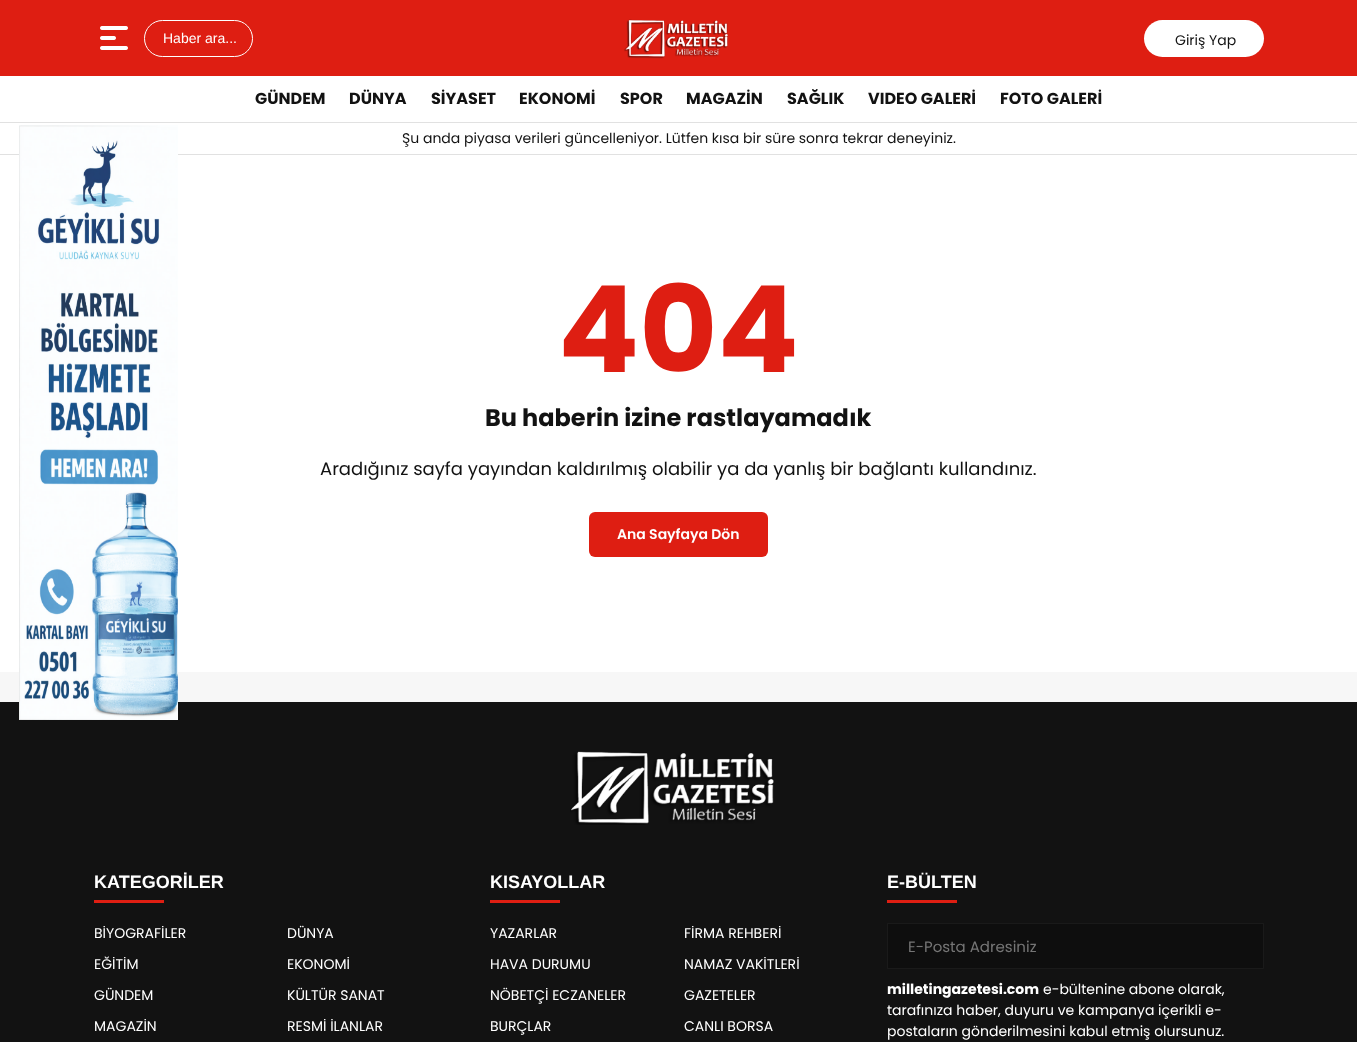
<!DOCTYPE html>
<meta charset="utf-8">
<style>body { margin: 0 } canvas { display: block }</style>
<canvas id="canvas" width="1357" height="1042"></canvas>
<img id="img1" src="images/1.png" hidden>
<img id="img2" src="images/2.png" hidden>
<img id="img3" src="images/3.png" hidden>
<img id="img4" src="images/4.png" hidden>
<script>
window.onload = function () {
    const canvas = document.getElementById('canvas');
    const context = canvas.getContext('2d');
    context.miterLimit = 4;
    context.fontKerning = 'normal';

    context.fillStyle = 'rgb(247, 247, 247)';
    context.fillRect(0, 0, 1357, 1042);
    context.fillStyle = 'rgb(222, 30, 18)';
    context.fillRect(0, 0, 1357, 76);
    context.drawImage(document.getElementById('img1'), 100, 26, 28, 24);
    context.beginPath();
    context.roundRect(144.5, 20.5, 108, 36, 18);
    context.strokeStyle = 'rgb(255, 255, 255)';
    context.stroke();
    context.drawImage(document.getElementById('img2'), 624, 19, 105, 40);
    context.fillStyle = 'rgb(255, 255, 255)';
    context.beginPath();
    context.roundRect(1144, 20, 120, 37, 18.5);
    context.fill();
    context.fillRect(0, 76, 1357, 46);
    context.fillStyle = 'rgb(225, 225, 225)';
    context.fillRect(0, 122, 1357, 1);
    context.fillStyle = 'rgb(255, 255, 255)';
    context.fillRect(0, 123, 1357, 31);
    context.fillStyle = 'rgb(225, 225, 225)';
    context.fillRect(0, 154, 1357, 1);
    context.fillStyle = 'rgb(255, 255, 255)';
    context.fillRect(0, 155, 1357, 517);
    context.fillStyle = 'rgb(18, 18, 18)';
    context.fillRect(0, 702, 1357, 340);
    context.drawImage(document.getElementById('img3'), 19, 125, 159, 595);
    context.fillStyle = 'rgb(222, 30, 18)';
    context.beginPath();
    context.roundRect(589, 512, 179, 45, 6);
    context.fill();
    context.drawImage(document.getElementById('img4'), 570, 751, 204, 74);
    context.fillRect(94, 900, 70, 3);
    context.fillRect(490, 900, 70, 3);
    context.fillRect(887, 900, 70, 3);
    context.fillStyle = 'rgb(14, 14, 14)';
    context.fillRect(887, 923, 377, 46);
    context.fillStyle = 'rgb(26, 26, 26)';
    context.beginPath();
    context.moveTo(1218, 923);
    context.lineTo(1264, 923);
    context.lineTo(1263, 924);
    context.lineTo(1218, 924);
    context.closePath();
    context.fill();
    context.fillStyle = 'rgba(255, 255, 255, 0.05)';
    context.beginPath();
    context.moveTo(1264, 923);
    context.lineTo(1264, 969);
    context.lineTo(1263, 968);
    context.lineTo(1263, 924);
    context.closePath();
    context.fill();
    context.beginPath();
    context.moveTo(1264, 969);
    context.lineTo(1218, 969);
    context.lineTo(1218, 968);
    context.lineTo(1263, 968);
    context.closePath();
    context.fill();
    context.fillStyle = 'rgb(26, 26, 26)';
    context.beginPath();
    context.moveTo(887, 923);
    context.lineTo(1218, 923);
    context.lineTo(1218, 924);
    context.lineTo(888, 924);
    context.closePath();
    context.fill();
    context.beginPath();
    context.moveTo(1218, 969);
    context.lineTo(887, 969);
    context.lineTo(888, 968);
    context.lineTo(1218, 968);
    context.closePath();
    context.fill();
    context.fillStyle = 'rgba(255, 255, 255, 0.05)';
    context.beginPath();
    context.moveTo(887, 969);
    context.lineTo(887, 923);
    context.lineTo(888, 924);
    context.lineTo(888, 968);
    context.closePath();
    context.fill();
    context.font = '14px Liberation Sans';
    context.fillStyle = 'rgb(255, 255, 255)';
    context.fillText('Haber ara...', 163, 43);
    context.font = '14px Poppins';
    context.fillStyle = 'rgb(18, 18, 18)';
    context.fillText('Giriş Yap', 1175, 45);
    context.font = 'bold 16px Poppins';
    context.fillText('GÜNDEM', 255, 104);
    context.fillText('DÜNYA', 349, 104);
    context.fillText('SİYASET', 431, 104);
    context.fillText('EKONOMİ', 519, 104);
    context.fillText('SPOR', 620, 104);
    context.fillText('MAGAZİN', 686, 104);
    context.fillText('SAĞLIK', 787, 104);
    context.fillText('VIDEO GALERİ', 868, 104);
    context.fillText('FOTO GALERİ', 1000, 104);
    context.font = '14px Poppins';
    context.fillText('Şu anda piyasa verileri güncelleniyor. Lütfen kısa bir süre sonra tekrar deneyiniz.', 402, 143);
    context.font = 'bold 120px Poppins';
    context.fillStyle = 'rgb(222, 30, 18)';
    context.fillText('404', 558, 372);
    context.font = 'bold 24px Poppins';
    context.fillStyle = 'rgb(18, 18, 18)';
    context.fillText('Bu haberin izine rastlayamadık', 485, 426);
    context.font = '18px Poppins';
    context.fillText('Aradığınız sayfa yayından kaldırılmış olabilir ya da yanlış bir bağlantı kullandınız.', 320, 475);
    context.font = '600 14px Poppins';
    context.fillStyle = 'rgb(255, 255, 255)';
    context.fillText('Ana Sayfaya Dön', 617, 539);
    context.font = 'bold 18px Liberation Sans';
    context.fillText('KATEGORİLER', 94, 888);
    context.font = '14px Poppins';
    context.fillText('BİYOGRAFİLER', 94, 938);
    context.fillText('DÜNYA', 287, 938);
    context.fillText('EĞİTİM', 94, 969);
    context.fillText('EKONOMİ', 287, 969);
    context.fillText('GÜNDEM', 94, 1000);
    context.fillText('KÜLTÜR SANAT', 287, 1000);
    context.fillText('MAGAZİN', 94, 1031);
    context.fillText('RESMİ İLANLAR', 287, 1031);
    context.font = 'bold 18px Liberation Sans';
    context.fillText('KISAYOLLAR', 490, 888);
    context.font = '14px Poppins';
    context.fillText('YAZARLAR', 490, 938);
    context.fillText('FİRMA REHBERİ', 684, 938);
    context.fillText('HAVA DURUMU', 490, 969);
    context.fillText('NAMAZ VAKİTLERİ', 684, 969);
    context.fillText('NÖBETÇİ ECZANELER', 490, 1000);
    context.fillText('GAZETELER', 684, 1000);
    context.fillText('BURÇLAR', 490, 1031);
    context.fillText('CANLI BORSA', 684, 1031);
    context.font = 'bold 18px Liberation Sans';
    context.fillText('E-BÜLTEN', 887, 888);
    context.font = '15px Poppins';
    context.fillStyle = 'rgb(117, 117, 117)';
    context.fillText('E-Posta Adresiniz', 908, 952);
    context.font = 'bold 14px Poppins';
    context.fillStyle = 'rgb(255, 255, 255)';
    context.fillText('milletingazetesi.com', 887, 994);
    context.font = '14px Poppins';
    context.fillText('e-bültenine abone olarak,', 1043, 994);
    context.fillText('tarafınıza haber, duyuru ve kampanya içerikli e-', 887, 1015);
    context.fillText('postaların gönderilmesini kabul etmiş olursunuz.', 887, 1036);
};
</script>
